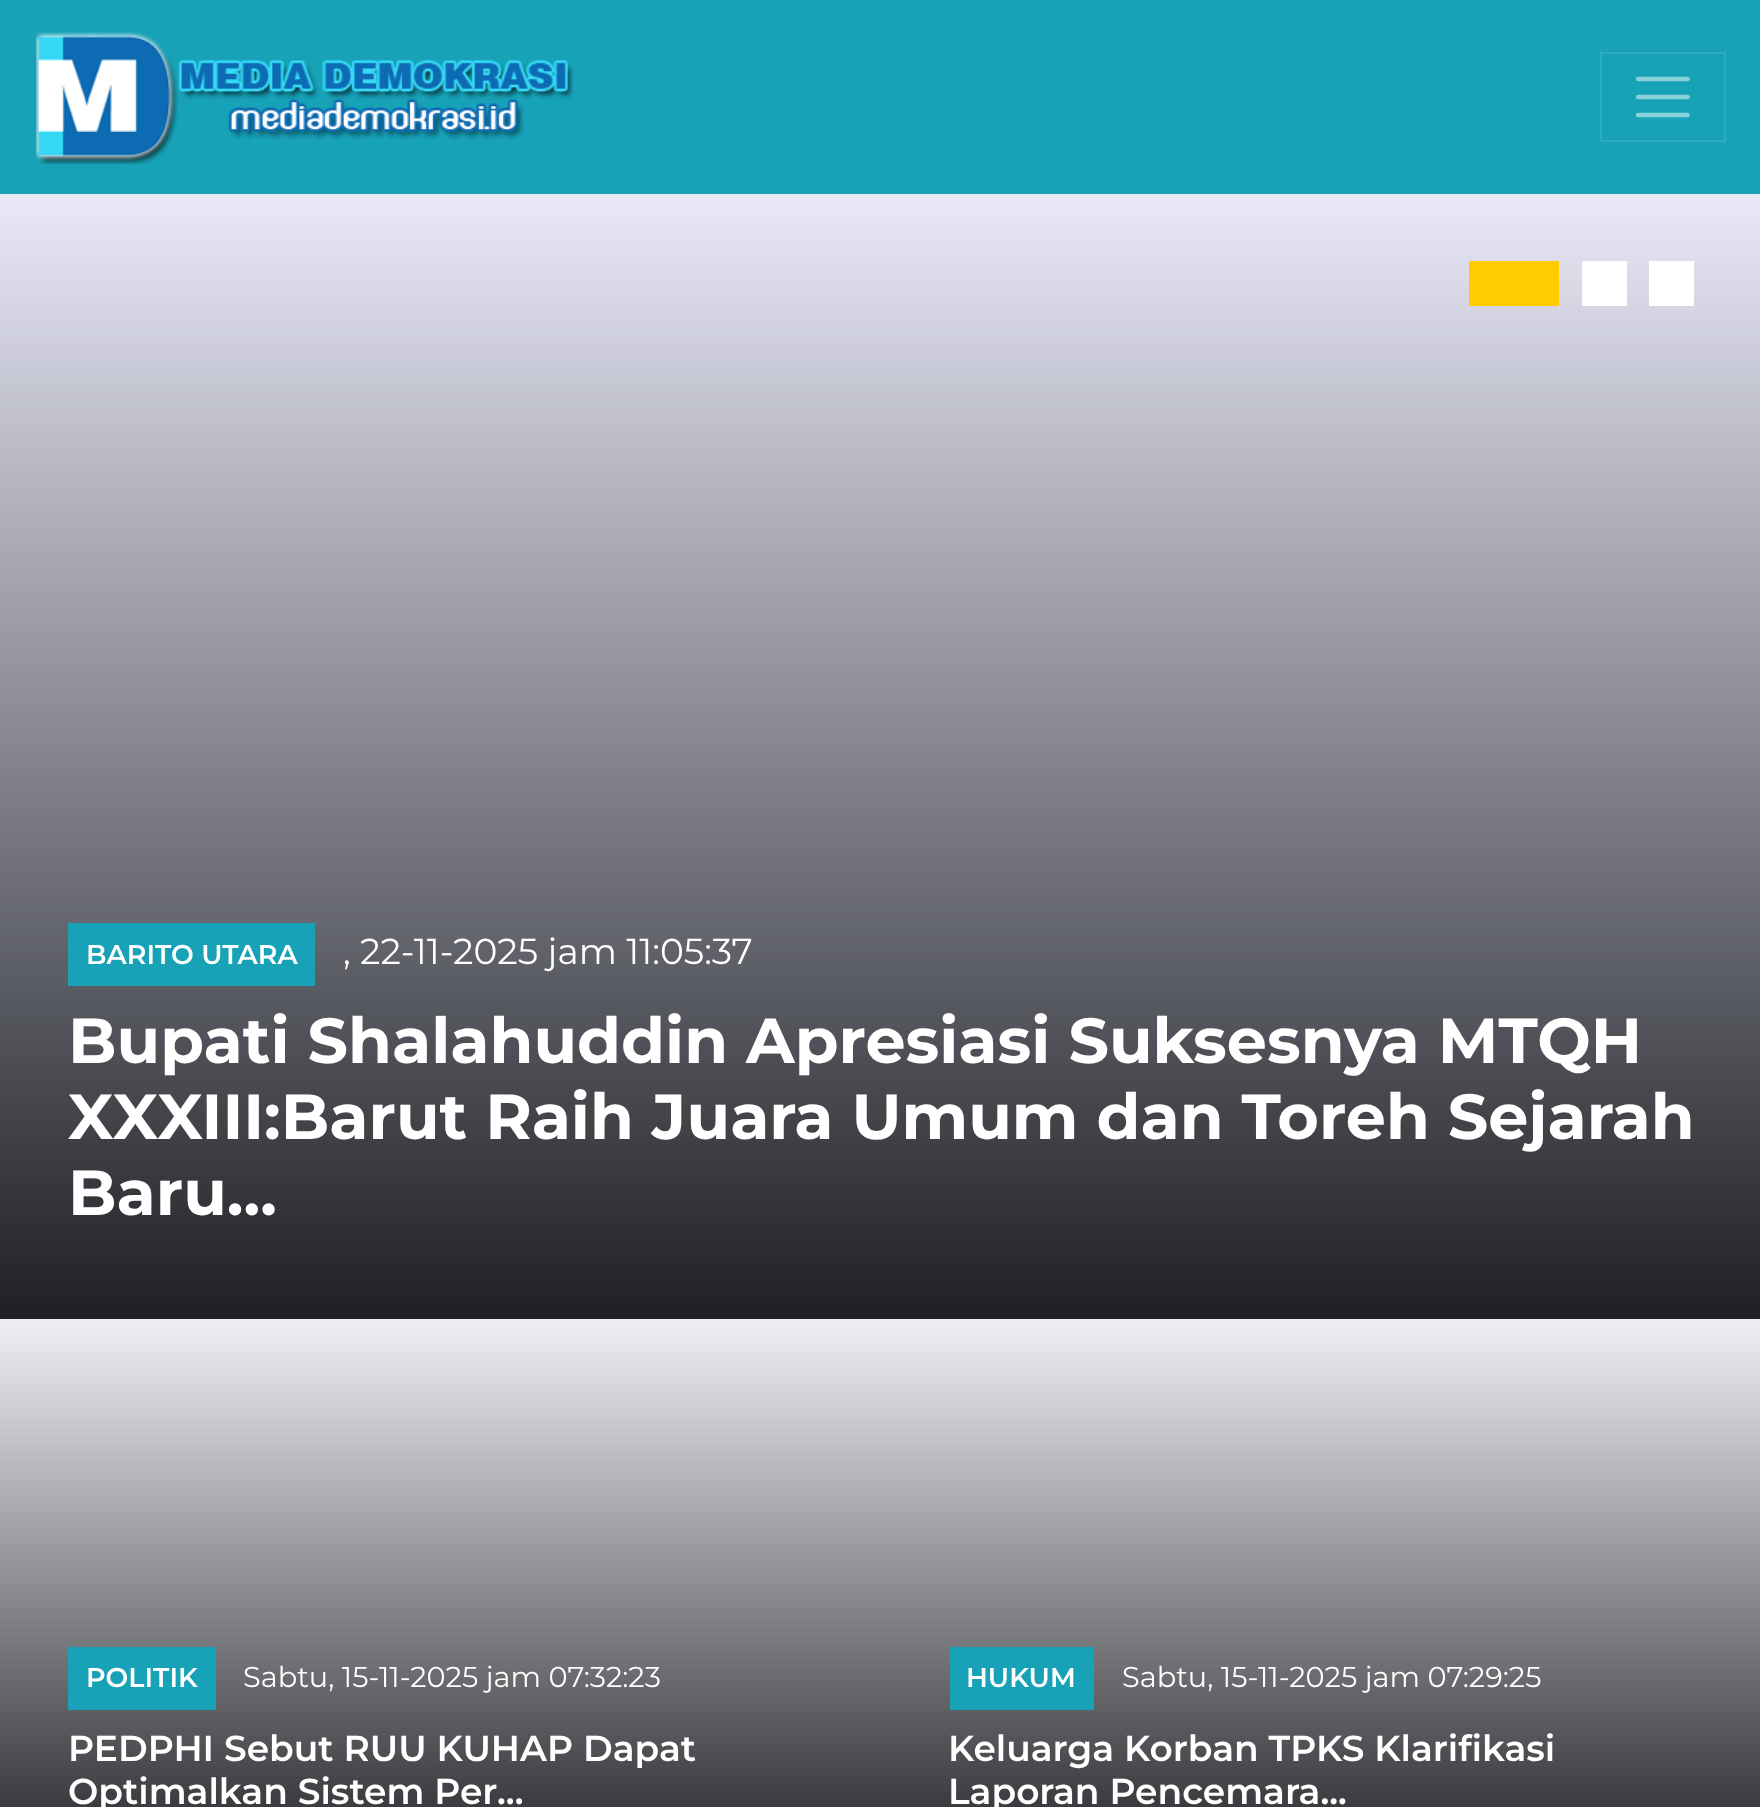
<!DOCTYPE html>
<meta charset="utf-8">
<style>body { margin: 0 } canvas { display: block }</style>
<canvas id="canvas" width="1760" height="1807"></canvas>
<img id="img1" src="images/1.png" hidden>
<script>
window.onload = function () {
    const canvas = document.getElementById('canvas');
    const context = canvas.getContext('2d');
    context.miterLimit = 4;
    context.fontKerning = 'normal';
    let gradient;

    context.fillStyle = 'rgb(23, 162, 184)';
    context.fillRect(0, 0, 1760, 1807);
    context.drawImage(document.getElementById('img1'), 36, 31, 538, 134);
    context.strokeStyle = 'rgb(46, 171, 191)';
    context.lineWidth = 2;
    context.strokeRect(1601, 53, 124, 88);
    context.beginPath();
    context.moveTo(1638, 79);
    context.lineTo(1687.5, 79);
    context.moveTo(1638, 97);
    context.lineTo(1687.5, 97);
    context.moveTo(1638, 115);
    context.lineTo(1687.5, 115);
    context.strokeStyle = 'rgb(139, 209, 220)';
    context.lineWidth = 4.5;
    context.lineCap = 'round';
    context.stroke();
    gradient = context.createLinearGradient(881, 193, 881, 1319);
    gradient.addColorStop(0, 'rgb(233, 233, 248)');
    gradient.addColorStop(1, 'rgb(30, 32, 36)');
    context.fillStyle = gradient;
    context.fillRect(0, 194, 1760, 1125);
    context.fillStyle = 'rgb(255, 204, 0)';
    context.fillRect(1469, 261, 90, 45);
    context.fillStyle = 'rgb(255, 255, 255)';
    context.fillRect(1582, 261, 45, 45);
    context.fillRect(1649, 261, 45, 45);
    context.fillStyle = 'rgb(23, 162, 184)';
    context.fillRect(68, 923, 247, 63);
    gradient = context.createLinearGradient(441, 1319, 441, 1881);
    gradient.addColorStop(0, 'rgb(238, 240, 243)');
    gradient.addColorStop(1, 'rgb(30, 32, 36)');
    context.fillStyle = gradient;
    context.fillRect(0, 1319, 882, 488);
    context.fillStyle = 'rgb(23, 162, 184)';
    context.fillRect(68, 1647, 148, 63);
    gradient = context.createLinearGradient(1322, 1319, 1322, 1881);
    gradient.addColorStop(0, 'rgb(238, 240, 243)');
    gradient.addColorStop(1, 'rgb(30, 32, 36)');
    context.fillStyle = gradient;
    context.fillRect(882, 1319, 878, 488);
    context.fillStyle = 'rgb(23, 162, 184)';
    context.fillRect(950, 1647, 144, 63);
    context.font = '600 27px Montserrat';
    context.fillStyle = 'rgb(255, 255, 255)';
    context.fillText('BARITO UTARA', 86, 964);
    context.font = '36px Montserrat';
    context.fillText(', 22-11-2025 jam 11:05:37', 343, 964);
    context.font = 'bold 63.55px Montserrat';
    context.fillText('Bupati Shalahuddin Apresiasi Suksesnya MTQH', 68, 1063);
    context.fillText('XXXIII:Barut Raih Juara Umum dan Toreh Sejarah', 68, 1139);
    context.fillText('Baru...', 68, 1215);
    context.font = '600 27px Montserrat';
    context.fillText('POLITIK', 86, 1687);
    context.font = '28.75px Montserrat';
    context.fillText('Sabtu, 15-11-2025 jam 07:32:23', 243, 1687);
    context.font = '600 36px Montserrat';
    context.fillText('PEDPHI Sebut RUU KUHAP Dapat', 68, 1761);
    context.fillText('Optimalkan Sistem Per...', 68, 1804);
    context.font = '600 27px Montserrat';
    context.fillText('HUKUM', 966, 1687);
    context.font = '28.75px Montserrat';
    context.fillText('Sabtu, 15-11-2025 jam 07:29:25', 1122, 1687);
    context.font = '600 36px Montserrat';
    context.fillText('Keluarga Korban TPKS Klarifikasi', 948, 1761);
    context.fillText('Laporan Pencemara...', 948, 1804);
};
</script>
